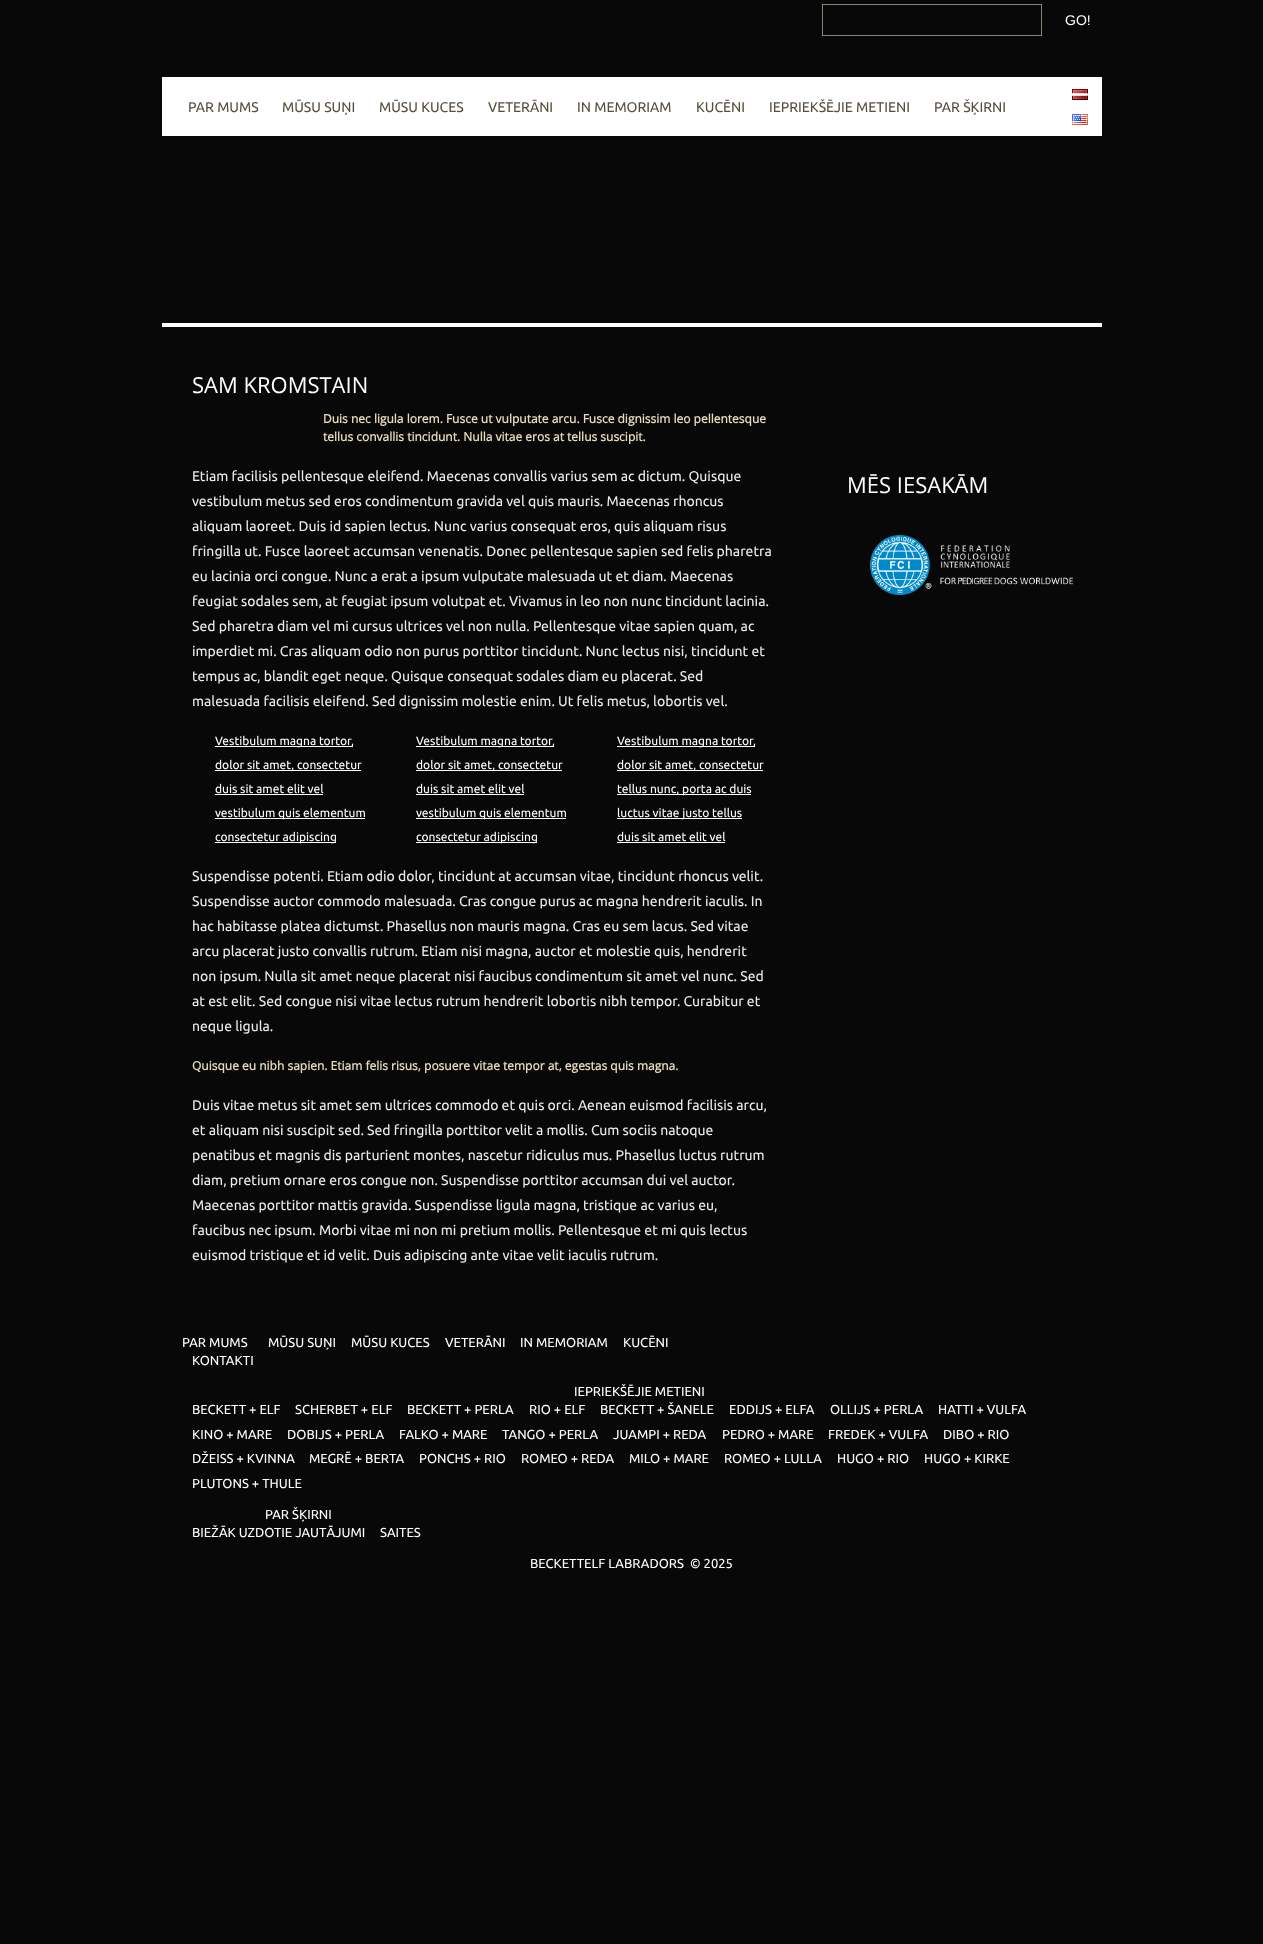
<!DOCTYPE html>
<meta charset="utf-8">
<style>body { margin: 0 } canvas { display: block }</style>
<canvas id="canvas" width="1263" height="1944"></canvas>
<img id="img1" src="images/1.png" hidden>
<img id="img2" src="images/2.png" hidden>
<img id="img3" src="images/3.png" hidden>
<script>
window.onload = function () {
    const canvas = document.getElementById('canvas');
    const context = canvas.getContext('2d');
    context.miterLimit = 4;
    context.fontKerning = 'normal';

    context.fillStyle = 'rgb(8, 8, 8)';
    context.fillRect(0, 0, 1263, 1944);
    context.strokeStyle = 'rgb(140, 129, 113)';
    context.strokeRect(822.5, 4.5, 219, 31);
    context.fillStyle = 'rgb(255, 255, 255)';
    context.fillRect(162, 77, 940, 59);
    context.drawImage(document.getElementById('img1'), 1072, 89, 16, 11);
    context.drawImage(document.getElementById('img2'), 1072, 114, 16, 11);
    context.fillRect(162, 323, 940, 4);
    context.fillRect(215, 746, 138, 1);
    context.fillRect(215, 770, 146, 1);
    context.fillRect(215, 794, 108, 1);
    context.fillRect(215, 818, 150, 1);
    context.fillRect(215, 842, 121, 1);
    context.fillRect(416, 746, 138, 1);
    context.fillRect(416, 770, 146, 1);
    context.fillRect(416, 794, 108, 1);
    context.fillRect(416, 818, 150, 1);
    context.fillRect(416, 842, 121, 1);
    context.fillRect(617, 746, 138, 1);
    context.fillRect(617, 770, 146, 1);
    context.fillRect(617, 794, 134, 1);
    context.fillRect(617, 818, 125, 1);
    context.fillRect(617, 842, 108, 1);
    context.drawImage(document.getElementById('img3'), 870, 535, 203, 60);
    context.font = '14px Liberation Sans';
    context.fillText('GO!', 1065, 25);
    context.font = '14px Ubuntu';
    context.fillStyle = 'rgb(87, 77, 62)';
    context.fillText('PAR MUMS', 188, 112);
    context.fillText('MŪSU SUŅI', 282, 112);
    context.fillText('MŪSU KUCES', 379, 112);
    context.fillText('VETERĀNI', 488, 112);
    context.fillText('IN MEMORIAM', 577, 112);
    context.fillText('KUCĒNI', 696, 112);
    context.fillText('IEPRIEKŠĒJIE METIENI', 769, 112);
    context.fillText('PAR ŠĶIRNI', 934, 112);
    context.font = '22px Open Sans';
    context.fillStyle = 'rgb(255, 255, 255)';
    context.fillText('SAM KROMSTAIN', 192, 393);
    context.font = 'bold 12px Open Sans';
    context.fillStyle = 'rgb(229, 217, 184)';
    context.fillText('Duis nec ligula lorem. Fusce ut vulputate arcu. Fusce dignissim leo pellentesque', 323, 423);
    context.fillText('tellus convallis tincidunt. Nulla vitae eros at tellus suscipit.', 323, 441);
    context.font = '14px Ubuntu';
    context.fillStyle = 'rgb(235, 235, 235)';
    context.fillText('Etiam facilisis pellentesque eleifend. Maecenas convallis varius sem ac dictum. Quisque', 192, 481);
    context.fillText('vestibulum metus sed eros condimentum gravida vel quis mauris. Maecenas rhoncus', 192, 506);
    context.fillText('aliquam laoreet. Duis id sapien lectus. Nunc varius consequat eros, quis aliquam risus', 192, 531);
    context.fillText('fringilla ut. Fusce laoreet accumsan venenatis. Donec pellentesque sapien sed felis pharetra', 192, 556);
    context.fillText('eu lacinia orci congue. Nunc a erat a ipsum vulputate malesuada ut et diam. Maecenas', 192, 581);
    context.fillText('feugiat sodales sem, at feugiat ipsum volutpat et. Vivamus in leo non nunc tincidunt lacinia.', 192, 606);
    context.fillText('Sed pharetra diam vel mi cursus ultrices vel non nulla. Pellentesque vitae sapien quam, ac', 192, 631);
    context.fillText('imperdiet mi. Cras aliquam odio non purus porttitor tincidunt. Nunc lectus nisi, tincidunt et', 192, 656);
    context.fillText('tempus ac, blandit eget neque. Quisque consequat sodales diam eu placerat. Sed', 192, 681);
    context.fillText('malesuada facilisis eleifend. Sed dignissim molestie enim. Ut felis metus, lobortis vel.', 192, 706);
    context.font = '12px Ubuntu';
    context.fillStyle = 'rgb(255, 255, 255)';
    context.fillText('Vestibulum magna tortor,', 215, 745);
    context.fillText('dolor sit amet, consectetur', 215, 769);
    context.fillText('duis sit amet elit vel', 215, 793);
    context.fillText('vestibulum quis elementum', 215, 817);
    context.fillText('consectetur adipiscing', 215, 841);
    context.fillText('Vestibulum magna tortor,', 416, 745);
    context.fillText('dolor sit amet, consectetur', 416, 769);
    context.fillText('duis sit amet elit vel', 416, 793);
    context.fillText('vestibulum quis elementum', 416, 817);
    context.fillText('consectetur adipiscing', 416, 841);
    context.fillText('Vestibulum magna tortor,', 617, 745);
    context.fillText('dolor sit amet, consectetur', 617, 769);
    context.fillText('tellus nunc, porta ac duis', 617, 793);
    context.fillText('luctus vitae justo tellus', 617, 817);
    context.fillText('duis sit amet elit vel', 617, 841);
    context.font = '14px Ubuntu';
    context.fillStyle = 'rgb(235, 235, 235)';
    context.fillText('Suspendisse potenti. Etiam odio dolor, tincidunt at accumsan vitae, tincidunt rhoncus velit.', 192, 881);
    context.fillText('Suspendisse auctor commodo malesuada. Cras congue purus ac magna hendrerit iaculis. In', 192, 906);
    context.fillText('hac habitasse platea dictumst. Phasellus non mauris magna. Cras eu sem lacus. Sed vitae', 192, 931);
    context.fillText('arcu placerat justo convallis rutrum. Etiam nisi magna, auctor et molestie quis, hendrerit', 192, 956);
    context.fillText('non ipsum. Nulla sit amet neque placerat nisi faucibus condimentum sit amet vel nunc. Sed', 192, 981);
    context.fillText('at est elit. Sed congue nisi vitae lectus rutrum hendrerit lobortis nibh tempor. Curabitur et', 192, 1006);
    context.fillText('neque ligula.', 192, 1031);
    context.font = 'bold 12px Open Sans';
    context.fillStyle = 'rgb(229, 217, 184)';
    context.fillText('Quisque eu nibh sapien. Etiam felis risus, posuere vitae tempor at, egestas quis magna.', 192, 1070);
    context.font = '14px Ubuntu';
    context.fillStyle = 'rgb(235, 235, 235)';
    context.fillText('Duis vitae metus sit amet sem ultrices commodo et quis orci. Aenean euismod facilisis arcu,', 192, 1110);
    context.fillText('et aliquam nisi suscipit sed. Sed fringilla porttitor velit a mollis. Cum sociis natoque', 192, 1135);
    context.fillText('penatibus et magnis dis parturient montes, nascetur ridiculus mus. Phasellus luctus rutrum', 192, 1160);
    context.fillText('diam, pretium ornare eros congue non. Suspendisse porttitor accumsan dui vel auctor.', 192, 1185);
    context.fillText('Maecenas porttitor mattis gravida. Suspendisse ligula magna, tristique ac varius eu,', 192, 1210);
    context.fillText('faucibus nec ipsum. Morbi vitae mi non mi pretium mollis. Pellentesque et mi quis lectus', 192, 1235);
    context.fillText('euismod tristique et id velit. Duis adipiscing ante vitae velit iaculis rutrum.', 192, 1260);
    context.font = '22px Open Sans';
    context.fillStyle = 'rgb(255, 255, 255)';
    context.fillText('MĒS IESAKĀM', 847, 493);
    context.font = '13px Ubuntu';
    context.fillText('PAR MUMS', 182, 1347);
    context.fillText('KONTAKTI', 192, 1365);
    context.fillText('MŪSU SUŅI', 268, 1347);
    context.fillText('MŪSU KUCES', 351, 1347);
    context.fillText('VETERĀNI', 445, 1347);
    context.fillText('IN MEMORIAM', 520, 1347);
    context.fillText('KUCĒNI', 623, 1347);
    context.fillText('IEPRIEKŠĒJIE METIENI', 574, 1396);
    context.fillText('BECKETT + ELF', 192, 1414);
    context.fillText('SCHERBET + ELF', 295, 1414);
    context.fillText('BECKETT + PERLA', 407, 1414);
    context.fillText('RIO + ELF', 529, 1414);
    context.fillText('BECKETT + ŠANELE', 600, 1414);
    context.fillText('EDDIJS + ELFA', 729, 1414);
    context.fillText('OLLIJS + PERLA', 830, 1414);
    context.fillText('HATTI + VULFA', 938, 1414);
    context.fillText('KINO + MARE', 192, 1439);
    context.fillText('DOBIJS + PERLA', 287, 1439);
    context.fillText('FALKO + MARE', 399, 1439);
    context.fillText('TANGO + PERLA', 502, 1439);
    context.fillText('JUAMPI + REDA', 613, 1439);
    context.fillText('PEDRO + MARE', 722, 1439);
    context.fillText('FREDEK + VULFA', 828, 1439);
    context.fillText('DIBO + RIO', 943, 1439);
    context.fillText('DŽEISS + KVINNA', 192, 1463);
    context.fillText('MEGRĒ + BERTA', 309, 1463);
    context.fillText('PONCHS + RIO', 419, 1463);
    context.fillText('ROMEO + REDA', 521, 1463);
    context.fillText('MILO + MARE', 629, 1463);
    context.fillText('ROMEO + LULLA', 724, 1463);
    context.fillText('HUGO + RIO', 837, 1463);
    context.fillText('HUGO + KIRKE', 924, 1463);
    context.fillText('PLUTONS + THULE', 192, 1488);
    context.fillText('PAR ŠĶIRNI', 265, 1519);
    context.fillText('BIEŽĀK UZDOTIE JAUTĀJUMI', 192, 1537);
    context.fillText('SAITES', 380, 1537);
    context.fillText('BECKETTELF LABRADORS', 530, 1568);
    context.fillText('© 2025', 690, 1568);
};
</script>
